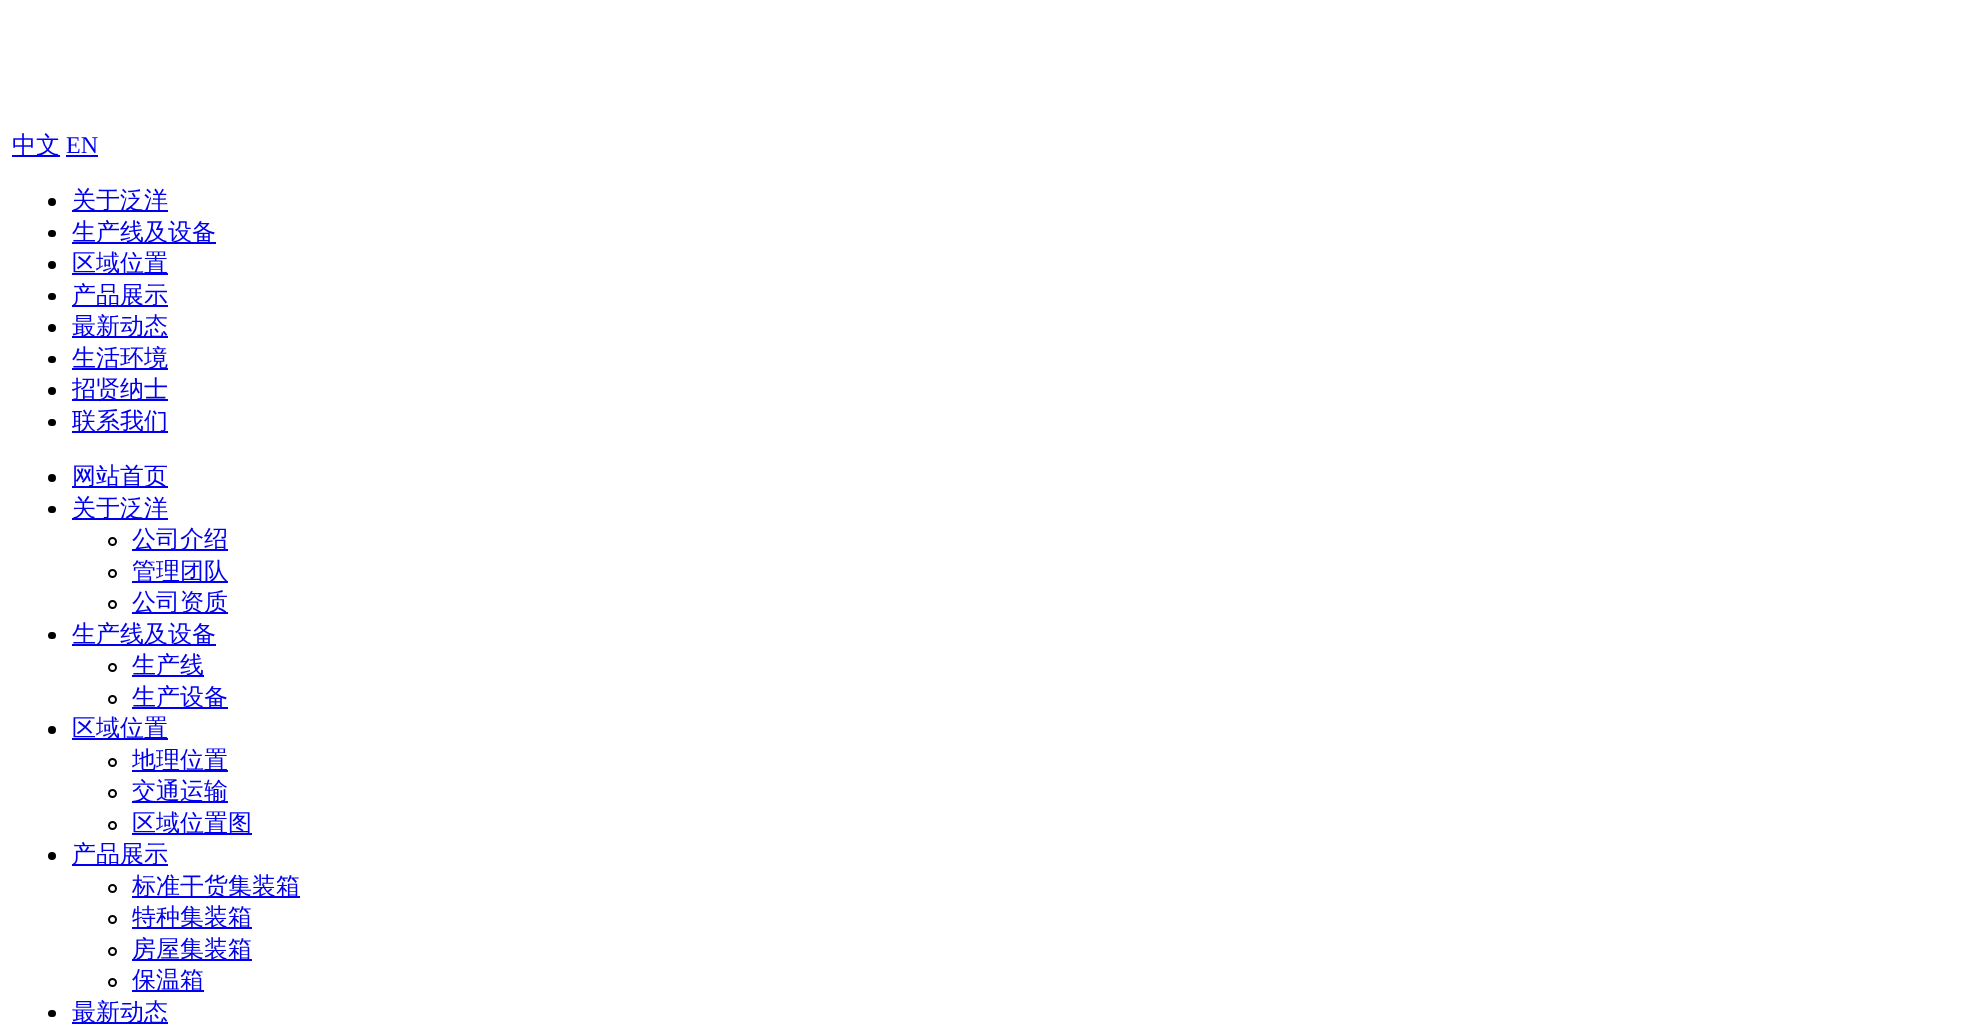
<!DOCTYPE html>
<meta charset="utf-8">
<style>body { margin: 0 } canvas { display: block }</style>
<canvas id="canvas" width="1962" height="1035"></canvas>
<script>
window.onload = function () {
    const canvas = document.getElementById('canvas');
    const context = canvas.getContext('2d');
    context.miterLimit = 4;
    context.fontKerning = 'normal';

    context.fillStyle = 'rgb(255, 255, 255)';
    context.fillRect(0, 0, 1962, 1035);
    context.fillStyle = 'rgb(0, 0, 238)';
    context.fillRect(12, 155, 48, 2);
    context.fillRect(66, 155, 32, 2);
    context.fillStyle = 'rgb(0, 0, 0)';
    context.beginPath();
    context.arc(52, 202, 4, 0, 2 * Math.PI);
    context.fill();
    context.fillStyle = 'rgb(0, 0, 238)';
    context.fillRect(72, 210, 96, 2);
    context.fillStyle = 'rgb(0, 0, 0)';
    context.beginPath();
    context.roundRect(48, 230, 8, 7, 3.5);
    context.fill();
    context.fillStyle = 'rgb(0, 0, 238)';
    context.fillRect(72, 242, 144, 2);
    context.fillStyle = 'rgb(0, 0, 0)';
    context.beginPath();
    context.arc(52, 265, 4, 0, 2 * Math.PI);
    context.fill();
    context.fillStyle = 'rgb(0, 0, 238)';
    context.fillRect(72, 273, 96, 2);
    context.fillStyle = 'rgb(0, 0, 0)';
    context.beginPath();
    context.roundRect(48, 293, 8, 7, 3.5);
    context.fill();
    context.fillStyle = 'rgb(0, 0, 238)';
    context.fillRect(72, 305, 96, 2);
    context.fillStyle = 'rgb(0, 0, 0)';
    context.beginPath();
    context.arc(52, 328, 4, 0, 2 * Math.PI);
    context.fill();
    context.fillStyle = 'rgb(0, 0, 238)';
    context.fillRect(72, 336, 96, 2);
    context.fillStyle = 'rgb(0, 0, 0)';
    context.beginPath();
    context.roundRect(48, 356, 8, 7, 3.5);
    context.fill();
    context.fillStyle = 'rgb(0, 0, 238)';
    context.fillRect(72, 368, 96, 2);
    context.fillStyle = 'rgb(0, 0, 0)';
    context.beginPath();
    context.arc(52, 391, 4, 0, 2 * Math.PI);
    context.fill();
    context.fillStyle = 'rgb(0, 0, 238)';
    context.fillRect(72, 399, 96, 2);
    context.fillStyle = 'rgb(0, 0, 0)';
    context.beginPath();
    context.roundRect(48, 419, 8, 7, 3.5);
    context.fill();
    context.fillStyle = 'rgb(0, 0, 238)';
    context.fillRect(72, 431, 96, 2);
    context.fillStyle = 'rgb(0, 0, 0)';
    context.beginPath();
    context.arc(52, 478, 4, 0, 2 * Math.PI);
    context.fill();
    context.fillStyle = 'rgb(0, 0, 238)';
    context.fillRect(72, 486, 96, 2);
    context.fillStyle = 'rgb(0, 0, 0)';
    context.beginPath();
    context.roundRect(48, 506, 8, 7, 3.5);
    context.fill();
    context.fillStyle = 'rgb(0, 0, 238)';
    context.fillRect(72, 518, 96, 2);
    context.beginPath();
    context.arc(112.5, 541.5, 3.5, 0, 2 * Math.PI);
    context.strokeStyle = 'rgb(0, 0, 0)';
    context.lineWidth = 2;
    context.stroke();
    context.fillRect(132, 549, 96, 2);
    context.beginPath();
    context.arc(112.5, 573.5, 3.5, 0, 2 * Math.PI);
    context.stroke();
    context.fillRect(132, 581, 96, 2);
    context.beginPath();
    context.arc(112.5, 604.5, 3.5, 0, 2 * Math.PI);
    context.stroke();
    context.fillRect(132, 612, 96, 2);
    context.fillStyle = 'rgb(0, 0, 0)';
    context.beginPath();
    context.roundRect(48, 632, 8, 7, 3.5);
    context.fill();
    context.fillStyle = 'rgb(0, 0, 238)';
    context.fillRect(72, 644, 144, 2);
    context.beginPath();
    context.arc(112.5, 667.5, 3.5, 0, 2 * Math.PI);
    context.stroke();
    context.fillRect(132, 675, 72, 2);
    context.beginPath();
    context.arc(112.5, 699.5, 3.5, 0, 2 * Math.PI);
    context.stroke();
    context.fillRect(132, 707, 96, 2);
    context.fillStyle = 'rgb(0, 0, 0)';
    context.beginPath();
    context.arc(52, 730, 4, 0, 2 * Math.PI);
    context.fill();
    context.fillStyle = 'rgb(0, 0, 238)';
    context.fillRect(72, 738, 96, 2);
    context.beginPath();
    context.arc(112.5, 762.5, 3.5, 0, 2 * Math.PI);
    context.stroke();
    context.fillRect(132, 770, 96, 2);
    context.beginPath();
    context.arc(112.5, 793.5, 3.5, 0, 2 * Math.PI);
    context.stroke();
    context.fillRect(132, 801, 96, 2);
    context.beginPath();
    context.arc(112.5, 825.5, 3.5, 0, 2 * Math.PI);
    context.stroke();
    context.fillRect(132, 833, 120, 2);
    context.fillStyle = 'rgb(0, 0, 0)';
    context.beginPath();
    context.arc(52, 856, 4, 0, 2 * Math.PI);
    context.fill();
    context.fillStyle = 'rgb(0, 0, 238)';
    context.fillRect(72, 864, 96, 2);
    context.beginPath();
    context.arc(112.5, 888.5, 3.5, 0, 2 * Math.PI);
    context.stroke();
    context.fillRect(132, 896, 168, 2);
    context.beginPath();
    context.arc(112.5, 919.5, 3.5, 0, 2 * Math.PI);
    context.stroke();
    context.fillRect(132, 927, 120, 2);
    context.beginPath();
    context.arc(112.5, 951.5, 3.5, 0, 2 * Math.PI);
    context.stroke();
    context.fillRect(132, 959, 120, 2);
    context.beginPath();
    context.arc(112.5, 982.5, 3.5, 0, 2 * Math.PI);
    context.stroke();
    context.fillRect(132, 990, 72, 2);
    context.fillStyle = 'rgb(0, 0, 0)';
    context.beginPath();
    context.roundRect(48, 1010, 8, 7, 3.5);
    context.fill();
    context.fillStyle = 'rgb(0, 0, 238)';
    context.fillRect(72, 1022, 96, 2);
    context.font = '500 24px WenQuanYi Zen Hei';
    context.fillText('中文', 12, 153);
    context.font = '24px Liberation Serif';
    context.fillText('EN', 66, 153);
    context.font = '500 24px WenQuanYi Zen Hei';
    context.fillText('关于泛洋', 72, 208);
    context.fillText('生产线及设备', 72, 240);
    context.fillText('区域位置', 72, 271);
    context.fillText('产品展示', 72, 303);
    context.fillText('最新动态', 72, 334);
    context.fillText('生活环境', 72, 366);
    context.fillText('招贤纳士', 72, 397);
    context.fillText('联系我们', 72, 429);
    context.fillText('网站首页', 72, 484);
    context.fillText('关于泛洋', 72, 516);
    context.fillText('公司介绍', 132, 547);
    context.fillText('管理团队', 132, 579);
    context.fillText('公司资质', 132, 610);
    context.fillText('生产线及设备', 72, 642);
    context.fillText('生产线', 132, 673);
    context.fillText('生产设备', 132, 705);
    context.fillText('区域位置', 72, 736);
    context.fillText('地理位置', 132, 768);
    context.fillText('交通运输', 132, 799);
    context.fillText('区域位置图', 132, 831);
    context.fillText('产品展示', 72, 862);
    context.fillText('标准干货集装箱', 132, 894);
    context.fillText('特种集装箱', 132, 925);
    context.fillText('房屋集装箱', 132, 957);
    context.fillText('保温箱', 132, 988);
    context.fillText('最新动态', 72, 1020);
};
</script>
